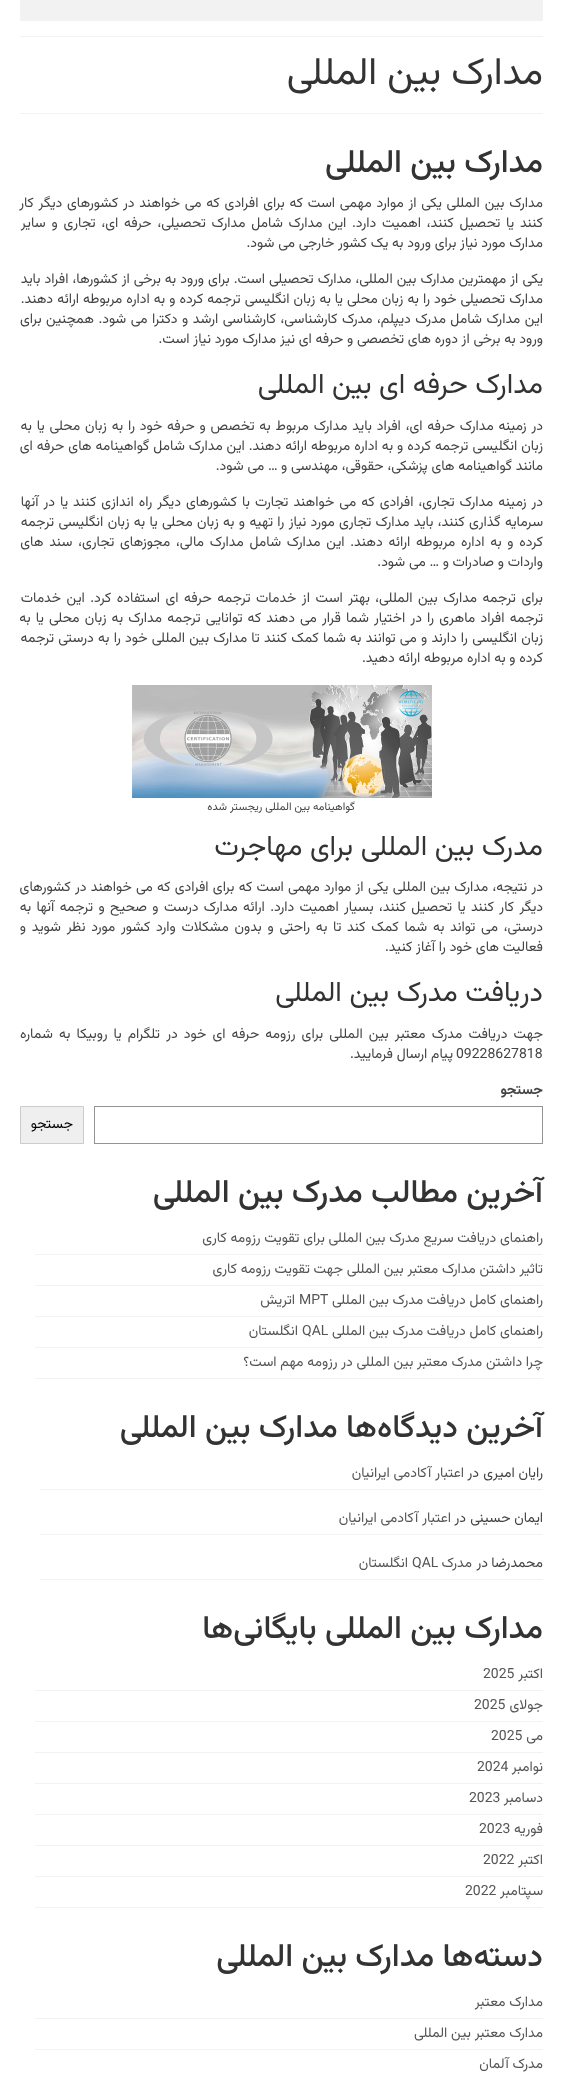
<!DOCTYPE html>
<meta charset="utf-8">
<style>body { margin: 0 } canvas { display: block }</style>
<canvas id="canvas" width="563" height="2079"></canvas>
<img id="img1" src="images/1.png" hidden>
<script>
window.onload = function () {
    const canvas = document.getElementById('canvas');
    const context = canvas.getContext('2d');
    context.miterLimit = 4;
    context.fontKerning = 'normal';

    context.fillStyle = 'rgb(255, 255, 255)';
    context.fillRect(0, 0, 563, 2079);
    context.fillStyle = 'rgb(242, 242, 242)';
    context.fillRect(20, 0, 523, 21);
    context.fillRect(20, 36, 523, 1);
    context.fillRect(20, 113, 523, 1);
    context.drawImage(document.getElementById('img1'), 132, 685, 300, 113);
    context.strokeStyle = 'rgb(148, 148, 148)';
    context.strokeRect(94.5, 1106.5, 448, 37);
    context.fillStyle = 'rgb(239, 239, 239)';
    context.beginPath();
    context.rect(20.5, 1106.5, 63, 37);
    context.fill();
    context.strokeStyle = 'rgb(204, 204, 204)';
    context.stroke();
    context.fillStyle = 'rgb(242, 242, 242)';
    context.fillRect(35, 1254, 508, 1);
    context.fillRect(35, 1285, 508, 1);
    context.fillRect(35, 1316, 508, 1);
    context.fillRect(35, 1347, 508, 1);
    context.fillRect(35, 1378, 508, 1);
    context.fillRect(40, 1489, 503, 1);
    context.fillRect(40, 1534, 503, 1);
    context.fillRect(40, 1579, 503, 1);
    context.fillRect(35, 1690, 508, 1);
    context.fillRect(35, 1721, 508, 1);
    context.fillRect(35, 1752, 508, 1);
    context.fillRect(35, 1783, 508, 1);
    context.fillRect(35, 1814, 508, 1);
    context.fillRect(35, 1845, 508, 1);
    context.fillRect(35, 1876, 508, 1);
    context.fillRect(35, 1907, 508, 1);
    context.fillRect(35, 2018, 508, 1);
    context.fillRect(35, 2049, 508, 1);
    context.direction = 'rtl';
    context.font = '38px Vazirmatn';
    context.fillStyle = 'rgb(51, 51, 51)';
    context.fillText('مدارک بین المللی', 543, 84);
    context.font = '500 32px Vazirmatn';
    context.fillText('مدارک بین المللی', 543, 172);
    context.wordSpacing = '1px';
    context.font = '14px Vazirmatn';
    context.fillStyle = 'rgb(68, 68, 68)';
    context.fillText('مدارک بین المللی یکی از موارد مهمی است که برای افرادی که می خواهند در کشورهای دیگر کار', 543, 207);
    context.wordSpacing = '2px';
    context.fillText('کنند یا تحصیل کنند، اهمیت دارد. این مدارک شامل مدارک تحصیلی، حرفه ای، تجاری و سایر', 543, 227);
    context.wordSpacing = '0px';
    context.fillText('مدارک مورد نیاز برای ورود به یک کشور خارجی می شود.', 543, 247);
    context.wordSpacing = '0.3px';
    context.fillText('یکی از مهمترین مدارک بین المللی، مدارک تحصیلی است. برای ورود به برخی از کشورها، افراد باید', 543, 283);
    context.fillText('مدارک تحصیلی خود را به زبان محلی یا به زبان انگلیسی ترجمه کرده و به اداره مربوطه ارائه دهند.', 543, 303);
    context.wordSpacing = '0.75px';
    context.fillText('این مدارک شامل مدرک دیپلم، مدرک کارشناسی، کارشناسی ارشد و دکترا می شود. همچنین برای', 543, 323);
    context.wordSpacing = '0px';
    context.fillText('ورود به برخی از دوره های تخصصی و حرفه ای نیز مدارک مورد نیاز است.', 543, 343);
    context.font = '28px Vazirmatn';
    context.fillStyle = 'rgb(51, 51, 51)';
    context.fillText('مدارک حرفه ای بین المللی', 543, 393);
    context.wordSpacing = '1.1px';
    context.font = '14px Vazirmatn';
    context.fillStyle = 'rgb(68, 68, 68)';
    context.fillText('در زمینه مدارک حرفه ای، افراد باید مدارک مربوط به تخصص و حرفه خود را به زبان محلی یا به', 543, 430);
    context.wordSpacing = '0.25px';
    context.fillText('زبان انگلیسی ترجمه کرده و به اداره مربوطه ارائه دهند. این مدارک شامل گواهینامه های حرفه ای', 543, 450);
    context.wordSpacing = '0px';
    context.fillText('مانند گواهینامه های پزشکی، حقوقی، مهندسی و … می شود.', 543, 470);
    context.wordSpacing = '1.25px';
    context.fillText('در زمینه مدارک تجاری، افرادی که می خواهند تجارت با کشورهای دیگر راه اندازی کنند یا در آنها', 543, 506);
    context.wordSpacing = '0.6px';
    context.fillText('سرمایه گذاری کنند، باید مدارک تجاری مورد نیاز را تهیه و به زبان محلی یا به زبان انگلیسی ترجمه', 543, 526);
    context.wordSpacing = '2px';
    context.fillText('کرده و به اداره مربوطه ارائه دهند. این مدارک شامل مدارک مالی، مجوزهای تجاری، سند های', 543, 546);
    context.wordSpacing = '0px';
    context.fillText('واردات و صادرات و … می شود.', 543, 566);
    context.wordSpacing = '1.75px';
    context.fillText('برای ترجمه مدارک بین المللی، بهتر است از خدمات ترجمه حرفه ای استفاده کرد. این خدمات', 543, 602);
    context.wordSpacing = '1.4px';
    context.fillText('ترجمه افراد ماهری را در اختیار شما قرار می دهند که توانایی ترجمه مدارک به زبان محلی یا به', 543, 622);
    context.wordSpacing = '0.5px';
    context.fillText('زبان انگلیسی را دارند و می توانند به شما کمک کنند تا مدارک بین المللی خود را به درستی ترجمه', 543, 642);
    context.wordSpacing = '0px';
    context.fillText('کرده و به اداره مربوطه ارائه دهید.', 543, 662);
    context.font = '11px Vazirmatn';
    context.fillText('گواهینامه بین المللی ریجستر شده', 355, 810);
    context.font = '28px Vazirmatn';
    context.fillStyle = 'rgb(51, 51, 51)';
    context.fillText('مدرک بین المللی برای مهاجرت', 543, 855);
    context.wordSpacing = '0.5px';
    context.font = '14px Vazirmatn';
    context.fillStyle = 'rgb(68, 68, 68)';
    context.fillText('در نتیجه، مدارک بین المللی یکی از موارد مهمی است که برای افرادی که می خواهند در کشورهای', 543, 891);
    context.wordSpacing = '1.6px';
    context.fillText('دیگر کار کنند یا تحصیل کنند، بسیار اهمیت دارد. ارائه مدارک درست و صحیح و ترجمه آنها به', 543, 911);
    context.wordSpacing = '2px';
    context.fillText('درستی، می تواند به شما کمک کند تا به راحتی و بدون مشکلات وارد کشور مورد نظر شوید و', 543, 931);
    context.wordSpacing = '0px';
    context.fillText('فعالیت های خود را آغاز کنید.', 543, 951);
    context.font = '28px Vazirmatn';
    context.fillStyle = 'rgb(51, 51, 51)';
    context.fillText('دریافت مدرک بین المللی', 543, 1001);
    context.wordSpacing = '2.4px';
    context.font = '14px Vazirmatn';
    context.fillStyle = 'rgb(68, 68, 68)';
    context.fillText('جهت دریافت مدرک معتبر بین المللی برای رزومه حرفه ای خود در تلگرام یا روبیکا به شماره', 543, 1038);
    context.wordSpacing = '0px';
    context.direction = 'ltr';
    context.fillText('09228627818', 456, 1058);
    context.direction = 'rtl';
    context.fillText('پیام ارسال فرمایید.', 453, 1058);
    context.font = 'bold 14px Vazirmatn';
    context.fillText('جستجو', 543, 1094);
    context.font = '14px Vazirmatn';
    context.fillStyle = 'rgb(0, 0, 0)';
    context.fillText('جستجو', 73, 1128);
    context.font = '500 32px Vazirmatn';
    context.fillStyle = 'rgb(51, 51, 51)';
    context.fillText('آخرین مطالب مدرک بین المللی', 543, 1202);
    context.font = '14px Vazirmatn';
    context.fillStyle = 'rgb(85, 85, 85)';
    context.fillText('راهنمای دریافت سریع مدرک بین المللی برای تقویت رزومه کاری', 543, 1242);
    context.fillText('تاثیر داشتن مدارک معتبر بین المللی جهت تقویت رزومه کاری', 543, 1273);
    context.fillText('راهنمای کامل دریافت مدرک بین المللی', 543, 1304);
    context.direction = 'ltr';
    context.fillText('MPT', 299, 1304);
    context.direction = 'rtl';
    context.fillText('اتریش', 295, 1304);
    context.fillText('راهنمای کامل دریافت مدرک بین المللی', 543, 1335);
    context.direction = 'ltr';
    context.fillText('QAL', 302, 1335);
    context.direction = 'rtl';
    context.fillText('انگلستان', 298, 1335);
    context.fillText('چرا داشتن مدرک معتبر بین المللی در رزومه مهم است؟', 543, 1366);
    context.font = '500 32px Vazirmatn';
    context.fillStyle = 'rgb(51, 51, 51)';
    context.fillText('آخرین دیدگاه‌ها مدارک بین المللی', 543, 1437);
    context.font = '14px Vazirmatn';
    context.fillStyle = 'rgb(68, 68, 68)';
    context.fillText('رایان امیری', 543, 1477);
    context.fillText('در', 479, 1477);
    context.fillStyle = 'rgb(85, 85, 85)';
    context.fillText('اعتبار آکادمی ایرانیان', 464, 1477);
    context.fillStyle = 'rgb(68, 68, 68)';
    context.fillText('ایمان حسینی', 543, 1522);
    context.fillText('در', 466, 1522);
    context.fillStyle = 'rgb(85, 85, 85)';
    context.fillText('اعتبار آکادمی ایرانیان', 451, 1522);
    context.fillStyle = 'rgb(68, 68, 68)';
    context.fillText('محمدرضا', 543, 1567);
    context.fillText('در', 488, 1567);
    context.fillStyle = 'rgb(85, 85, 85)';
    context.fillText('مدرک', 472, 1567);
    context.direction = 'ltr';
    context.fillText('QAL', 412, 1567);
    context.direction = 'rtl';
    context.fillText('انگلستان', 408, 1567);
    context.font = '500 32px Vazirmatn';
    context.fillStyle = 'rgb(51, 51, 51)';
    context.fillText('مدارک بین المللی بایگانی‌ها', 543, 1638);
    context.font = '14px Vazirmatn';
    context.fillStyle = 'rgb(85, 85, 85)';
    context.fillText('اکتبر', 543, 1678);
    context.direction = 'ltr';
    context.fillText('2025', 483, 1678);
    context.direction = 'rtl';
    context.fillText('جولای', 543, 1709);
    context.direction = 'ltr';
    context.fillText('2025', 474, 1709);
    context.direction = 'rtl';
    context.fillText('می', 543, 1740);
    context.direction = 'ltr';
    context.fillText('2025', 491, 1740);
    context.direction = 'rtl';
    context.fillText('نوامبر', 543, 1771);
    context.direction = 'ltr';
    context.fillText('2024', 477, 1771);
    context.direction = 'rtl';
    context.fillText('دسامبر', 543, 1802);
    context.direction = 'ltr';
    context.fillText('2023', 469, 1802);
    context.direction = 'rtl';
    context.fillText('فوریه', 543, 1833);
    context.direction = 'ltr';
    context.fillText('2023', 479, 1833);
    context.direction = 'rtl';
    context.fillText('اکتبر', 543, 1864);
    context.direction = 'ltr';
    context.fillText('2022', 483, 1864);
    context.direction = 'rtl';
    context.fillText('سپتامبر', 543, 1895);
    context.direction = 'ltr';
    context.fillText('2022', 465, 1895);
    context.direction = 'rtl';
    context.font = '500 32px Vazirmatn';
    context.fillStyle = 'rgb(51, 51, 51)';
    context.fillText('دسته‌ها مدارک', 543, 1966);
    context.fillText('بین المللی', 347, 1966);
    context.font = '14px Vazirmatn';
    context.fillStyle = 'rgb(85, 85, 85)';
    context.fillText('مدارک معتبر', 543, 2006);
    context.fillText('مدارک معتبر بین المللی', 543, 2037);
    context.fillText('مدرک آلمان', 543, 2068);
};
</script>
